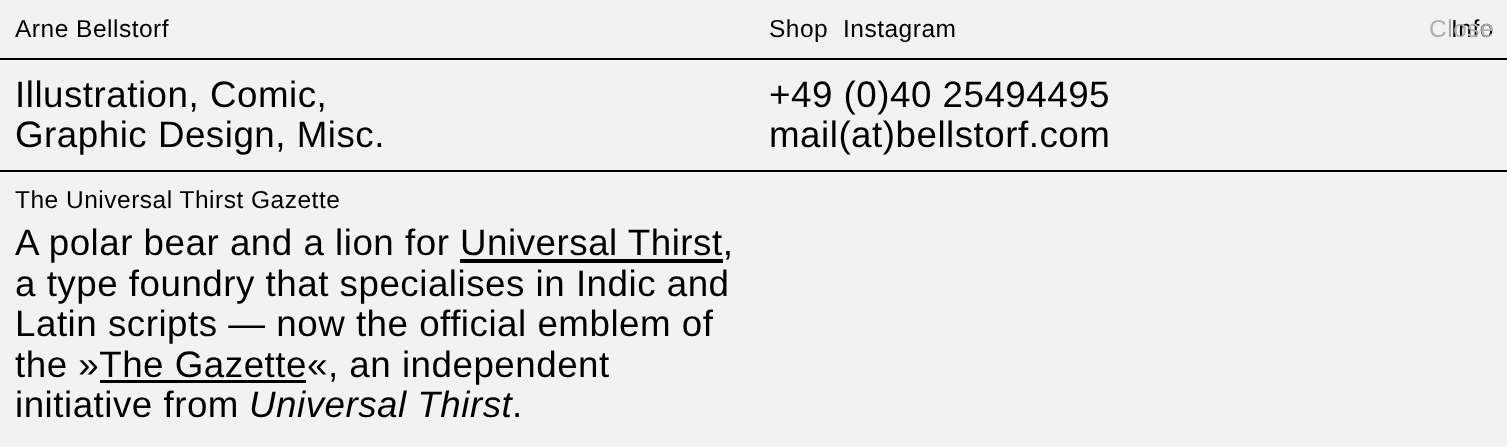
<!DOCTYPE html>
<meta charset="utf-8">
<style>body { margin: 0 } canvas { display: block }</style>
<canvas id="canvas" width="1507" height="447"></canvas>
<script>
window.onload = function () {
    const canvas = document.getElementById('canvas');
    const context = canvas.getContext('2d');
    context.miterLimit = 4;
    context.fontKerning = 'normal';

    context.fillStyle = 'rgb(242, 242, 242)';
    context.fillRect(0, 0, 1507, 447);
    context.fillStyle = 'rgb(0, 0, 0)';
    context.fillRect(0, 58, 1507, 2);
    context.fillRect(0, 170, 1507, 2);
    context.fillRect(460, 259, 263, 4);
    context.fillRect(100, 380, 206, 3);
    context.letterSpacing = '0.5px';
    context.font = '24.5px Liberation Sans';
    context.fillText('Arne Bellstorf', 15, 37);
    context.fillText('Shop', 769, 37);
    context.fillText('Instagram', 843, 37);
    context.fillText('Info', 1451, 37);
    context.fillStyle = 'rgb(175, 175, 175)';
    context.fillText('Close', 1429, 37);
    context.font = '36.75px Liberation Sans';
    context.fillStyle = 'rgb(0, 0, 0)';
    context.fillText('Illustration, Comic,', 15, 107);
    context.fillText('Graphic Design, Misc.', 15, 147);
    context.fillText('+49 (0)40 25494495', 769, 107);
    context.fillText('mail(at)bellstorf.com', 769, 147);
    context.font = '24.5px Liberation Sans';
    context.fillText('The Universal Thirst Gazette', 15, 208);
    context.font = '36.75px Liberation Sans';
    context.fillText('A polar bear and a lion for Universal Thirst,', 15, 255);
    context.fillText('a type foundry that specialises in Indic and', 15, 296);
    context.fillText('Latin scripts — now the official emblem of', 15, 336);
    context.fillText('the »The Gazette«, an independent', 15, 377);
    context.fillText('initiative from', 15, 417);
    context.font = 'italic 36.75px Liberation Sans';
    context.fillText('Universal Thirst', 249, 417);
    context.font = '36.75px Liberation Sans';
    context.fillText('.', 512, 417);
};
</script>
